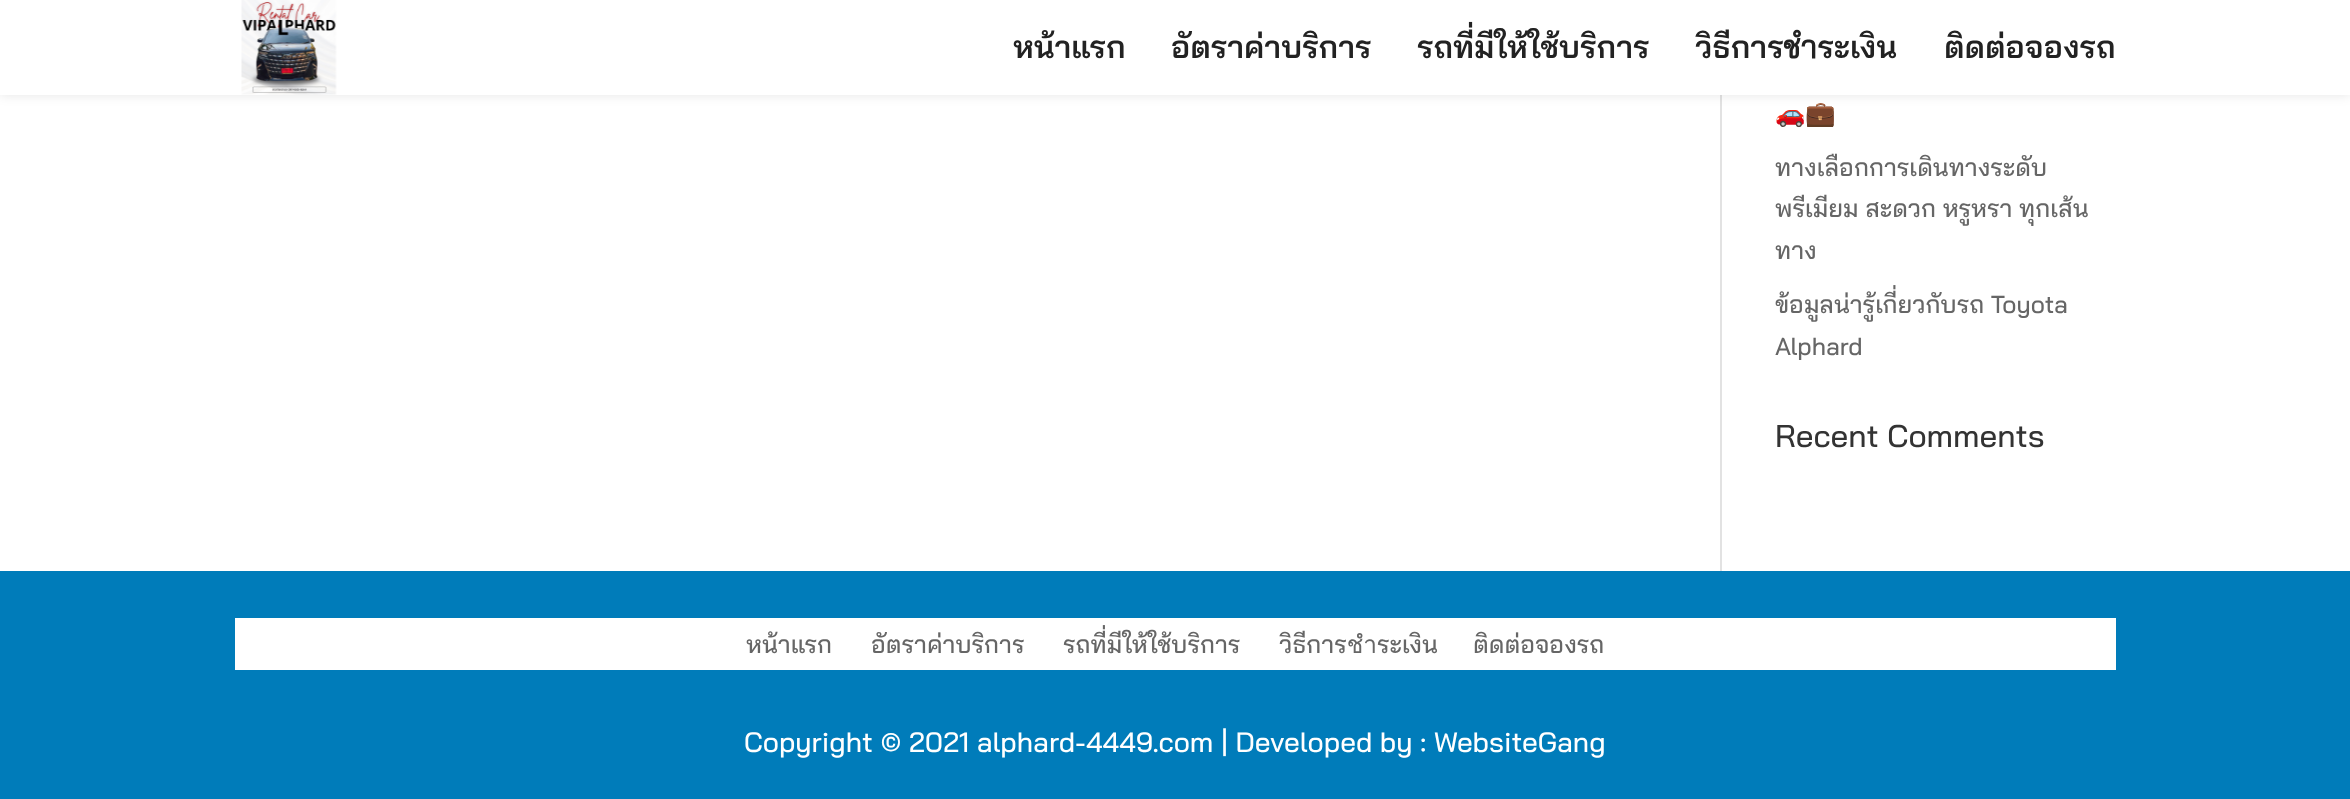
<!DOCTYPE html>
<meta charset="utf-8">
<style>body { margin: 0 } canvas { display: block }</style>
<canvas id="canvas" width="2350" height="799"></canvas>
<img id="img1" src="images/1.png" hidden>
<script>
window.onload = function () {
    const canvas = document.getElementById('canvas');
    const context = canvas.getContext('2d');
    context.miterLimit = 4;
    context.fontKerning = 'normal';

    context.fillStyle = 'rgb(255, 255, 255)';
    context.fillRect(0, 0, 2350, 799);
    context.fillStyle = 'rgb(226, 226, 226)';
    context.fillRect(1720, 95, 2, 476);
    context.fillStyle = 'rgba(0, 0, 0, 0.1)';
    context.filter = 'blur(6px)';
    context.beginPath();
    context.rect(0, 0, 2350, 95);
    context.fill();
    context.filter = 'none';
    context.fillStyle = 'rgb(255, 255, 255)';
    context.fillRect(0, 0, 2350, 95);
    context.drawImage(document.getElementById('img1'), 241, 0, 96, 95);
    context.fillStyle = 'rgb(0, 124, 186)';
    context.fillRect(0, 571, 2350, 228);
    context.fillStyle = 'rgb(255, 255, 255)';
    context.fillRect(235, 618, 1881, 52);
    context.font = '600 31.5px Bai Jamjuree';
    context.fillStyle = 'rgb(34, 34, 34)';
    context.fillText('หน้าแรก', 1013, 58);
    context.fillText('อัตราค่าบริการ', 1171, 58);
    context.fillText('รถที่มีให้ใช้บริการ', 1417, 58);
    context.fillText('วิธีการชำระเงิน', 1695, 58);
    context.fillText('ติดต่อจองรถ', 1944, 58);
    context.font = '24.5px Noto Color Emoji';
    context.fillStyle = 'rgb(102, 102, 102)';
    context.fillText('🚗💼', 1775, 122);
    context.font = '500 24.5px Bai Jamjuree';
    context.fillText('ทางเลือกการเดินทางระดับ', 1775, 176);
    context.fillText('พรีเมียม สะดวก หรูหรา ทุกเส้น', 1775, 217);
    context.fillText('ทาง', 1775, 259);
    context.fillText('ข้อมูลน่ารู้เกี่ยวกับรถ Toyota', 1775, 313);
    context.fillText('Alphard', 1775, 355);
    context.font = '500 31.5px Bai Jamjuree';
    context.fillStyle = 'rgb(51, 51, 51)';
    context.fillText('Recent Comments', 1775, 447);
    context.font = '500 24.5px Bai Jamjuree';
    context.fillStyle = 'rgb(102, 102, 102)';
    context.fillText('หน้าแรก', 746, 653);
    context.fillText('อัตราค่าบริการ', 871, 653);
    context.fillText('รถที่มีให้ใช้บริการ', 1063, 653);
    context.fillText('วิธีการชำระเงิน', 1279, 653);
    context.fillText('ติดต่อจองรถ', 1473, 653);
    context.font = '500 28px Bai Jamjuree';
    context.fillStyle = 'rgb(255, 255, 255)';
    context.fillText('Copyright © 2021 alphard-4449.com | Developed by : WebsiteGang', 744, 752);
};
</script>
